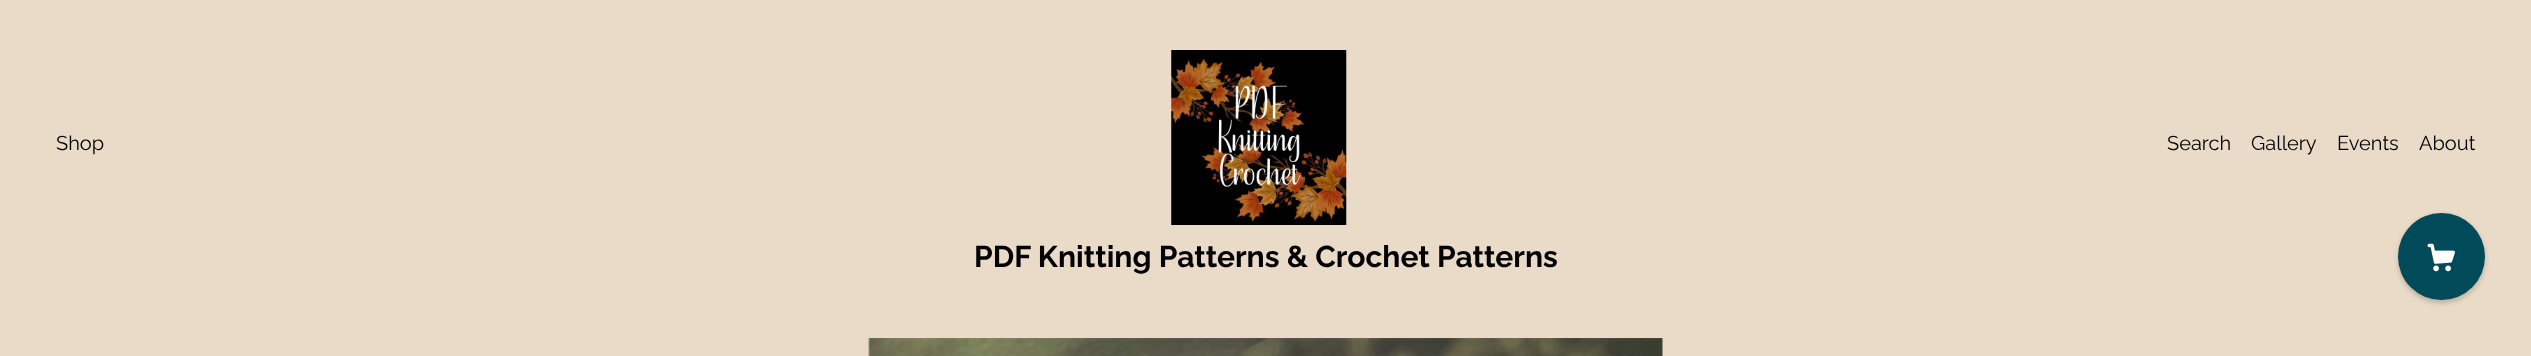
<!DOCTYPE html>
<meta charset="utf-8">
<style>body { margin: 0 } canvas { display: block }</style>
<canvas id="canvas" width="2531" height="356"></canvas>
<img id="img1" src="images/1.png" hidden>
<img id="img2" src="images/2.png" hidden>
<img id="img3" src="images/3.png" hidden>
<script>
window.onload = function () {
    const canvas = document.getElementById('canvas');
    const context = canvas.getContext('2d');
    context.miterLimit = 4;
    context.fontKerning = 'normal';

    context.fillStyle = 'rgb(233, 219, 199)';
    context.fillRect(0, 0, 2531, 356);
    context.drawImage(document.getElementById('img1'), 1171, 50, 176, 175);
    context.fillStyle = 'rgba(0, 0, 0, 0.2)';
    context.filter = 'blur(2.5px)';
    context.beginPath();
    context.roundRect(2398, 215, 87, 88, 43.5);
    context.fill();
    context.filter = 'none';
    context.fillStyle = 'rgb(0, 74, 89)';
    context.beginPath();
    context.arc(2441.5, 256.5, 43.5, 0, 2 * Math.PI);
    context.fill();
    context.drawImage(document.getElementById('img2'), 2427, 243, 28, 29);
    context.drawImage(document.getElementById('img3'), 868, 338, 795, 18);
    context.font = '20px Raleway';
    context.fillStyle = 'rgb(0, 0, 0)';
    context.fillText('Shop', 56, 150);
    context.fillText('Search', 2167, 150);
    context.fillText('Gallery', 2251, 150);
    context.fillText('Events', 2337, 150);
    context.fillText('About', 2419, 150);
    context.font = 'bold 30px Raleway';
    context.fillText('PDF Knitting Patterns & Crochet Patterns', 974, 267);
};
</script>
